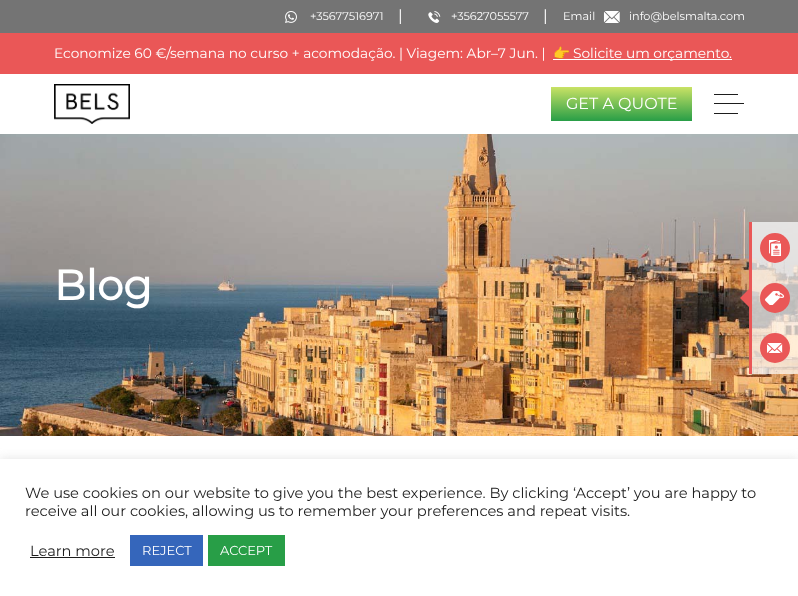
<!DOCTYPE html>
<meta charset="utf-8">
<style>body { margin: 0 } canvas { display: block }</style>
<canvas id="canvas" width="798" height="596"></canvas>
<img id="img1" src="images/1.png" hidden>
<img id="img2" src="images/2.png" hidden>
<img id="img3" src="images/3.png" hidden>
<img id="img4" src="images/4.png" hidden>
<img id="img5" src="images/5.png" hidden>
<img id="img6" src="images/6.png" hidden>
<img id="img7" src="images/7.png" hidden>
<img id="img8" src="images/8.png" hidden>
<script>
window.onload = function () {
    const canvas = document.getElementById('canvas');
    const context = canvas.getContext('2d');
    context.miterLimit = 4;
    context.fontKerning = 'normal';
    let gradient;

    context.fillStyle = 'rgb(255, 255, 255)';
    context.fillRect(0, 0, 798, 596);
    context.fillStyle = 'rgb(116, 116, 116)';
    context.fillRect(0, 0, 798, 33);
    context.drawImage(document.getElementById('img1'), 285, 11, 12, 12);
    context.drawImage(document.getElementById('img2'), 428, 11, 13, 12);
    context.drawImage(document.getElementById('img3'), 603, 11, 17, 12);
    context.fillStyle = 'rgb(234, 87, 87)';
    context.fillRect(0, 33, 798, 41);
    context.fillStyle = 'rgb(255, 255, 255)';
    context.fillRect(553, 59, 179, 1);
    context.drawImage(document.getElementById('img4'), 54, 84, 76, 40);
    gradient = context.createLinearGradient(622, 87, 622, 121);
    gradient.addColorStop(0, 'rgb(201, 226, 101)');
    gradient.addColorStop(1, 'rgb(40, 158, 71)');
    context.fillStyle = gradient;
    context.fillRect(551, 87, 141, 34);
    context.fillStyle = 'rgb(29, 29, 29)';
    context.fillRect(714, 94, 24, 1);
    context.fillRect(714, 103, 30, 1);
    context.fillRect(714, 113, 24, 1);
    context.drawImage(document.getElementById('img5'), 0, 134, 798, 302);
    context.fillStyle = 'rgba(172, 171, 171, 0.3)';
    context.filter = 'blur(5px)';
    context.beginPath();
    context.rect(0, 458, 798, 137);
    context.fill();
    context.filter = 'none';
    context.fillStyle = 'rgb(255, 255, 255)';
    context.fillRect(0, 459, 798, 137);
    context.fillStyle = 'rgb(29, 29, 29)';
    context.fillRect(30, 557, 85, 1);
    context.fillStyle = 'rgb(53, 102, 187)';
    context.fillRect(130, 535, 73, 31);
    context.fillStyle = 'rgb(40, 158, 71)';
    context.fillRect(208, 535, 77, 31);
    context.fillStyle = 'rgb(234, 87, 87)';
    context.beginPath();
    context.moveTo(752, 286);
    context.lineTo(752, 310);
    context.lineTo(740, 298);
    context.closePath();
    context.fill();
    context.fillRect(749, 222, 3, 152);
    context.fillStyle = 'rgba(255, 255, 255, 0.7)';
    context.fillRect(752, 222, 46, 152);
    context.fillStyle = 'rgb(234, 87, 87)';
    context.beginPath();
    context.arc(775, 248, 15, 0, 2 * Math.PI);
    context.fill();
    context.drawImage(document.getElementById('img6'), 769, 240, 12, 16);
    context.beginPath();
    context.arc(775, 298, 15, 0, 2 * Math.PI);
    context.fill();
    context.drawImage(document.getElementById('img7'), 765, 291, 20, 14);
    context.beginPath();
    context.arc(775, 348, 15, 0, 2 * Math.PI);
    context.fill();
    context.drawImage(document.getElementById('img8'), 767, 343, 16, 10);
    context.font = '100 11.25px Montserrat';
    context.fillStyle = 'rgb(255, 255, 255)';
    context.fillText('+35677516971', 310, 20);
    context.font = '100 16px Montserrat';
    context.fillText('|', 398, 21);
    context.font = '100 11.25px Montserrat';
    context.fillText('+35627055577', 451, 20);
    context.font = '100 16px Montserrat';
    context.fillText('|', 543, 21);
    context.font = '100 11.25px Montserrat';
    context.fillText('Email', 563, 20);
    context.fillText('info@belsmalta.com', 629, 20);
    context.font = '100 13.75px Montserrat';
    context.fillText('Economize 60 €/semana no curso + acomodação. | Viagem: Abr–7 Jun. |', 54, 58);
    context.font = '13.75px Noto Color Emoji';
    context.fillText('👉', 553, 58);
    context.font = '100 13.75px Montserrat';
    context.fillText('Solicite um orçamento.', 573, 58);
    context.font = '100 16px Montserrat';
    context.fillText('GET A QUOTE', 566, 109);
    context.font = 'bold 42px Montserrat';
    context.fillText('Blog', 54, 300);
    context.font = '100 14.65px Montserrat';
    context.fillStyle = 'rgb(29, 29, 29)';
    context.fillText('We use cookies on our website to give you the best experience. By clicking ‘Accept’ you are happy to', 25, 498);
    context.fillText('receive all our cookies, allowing us to remember your preferences and repeat visits.', 25, 516);
    context.fillText('Learn more', 30, 556);
    context.font = '100 13px Montserrat';
    context.fillStyle = 'rgb(255, 255, 255)';
    context.fillText('REJECT', 142, 555);
    context.fillText('ACCEPT', 220, 555);
};
</script>
